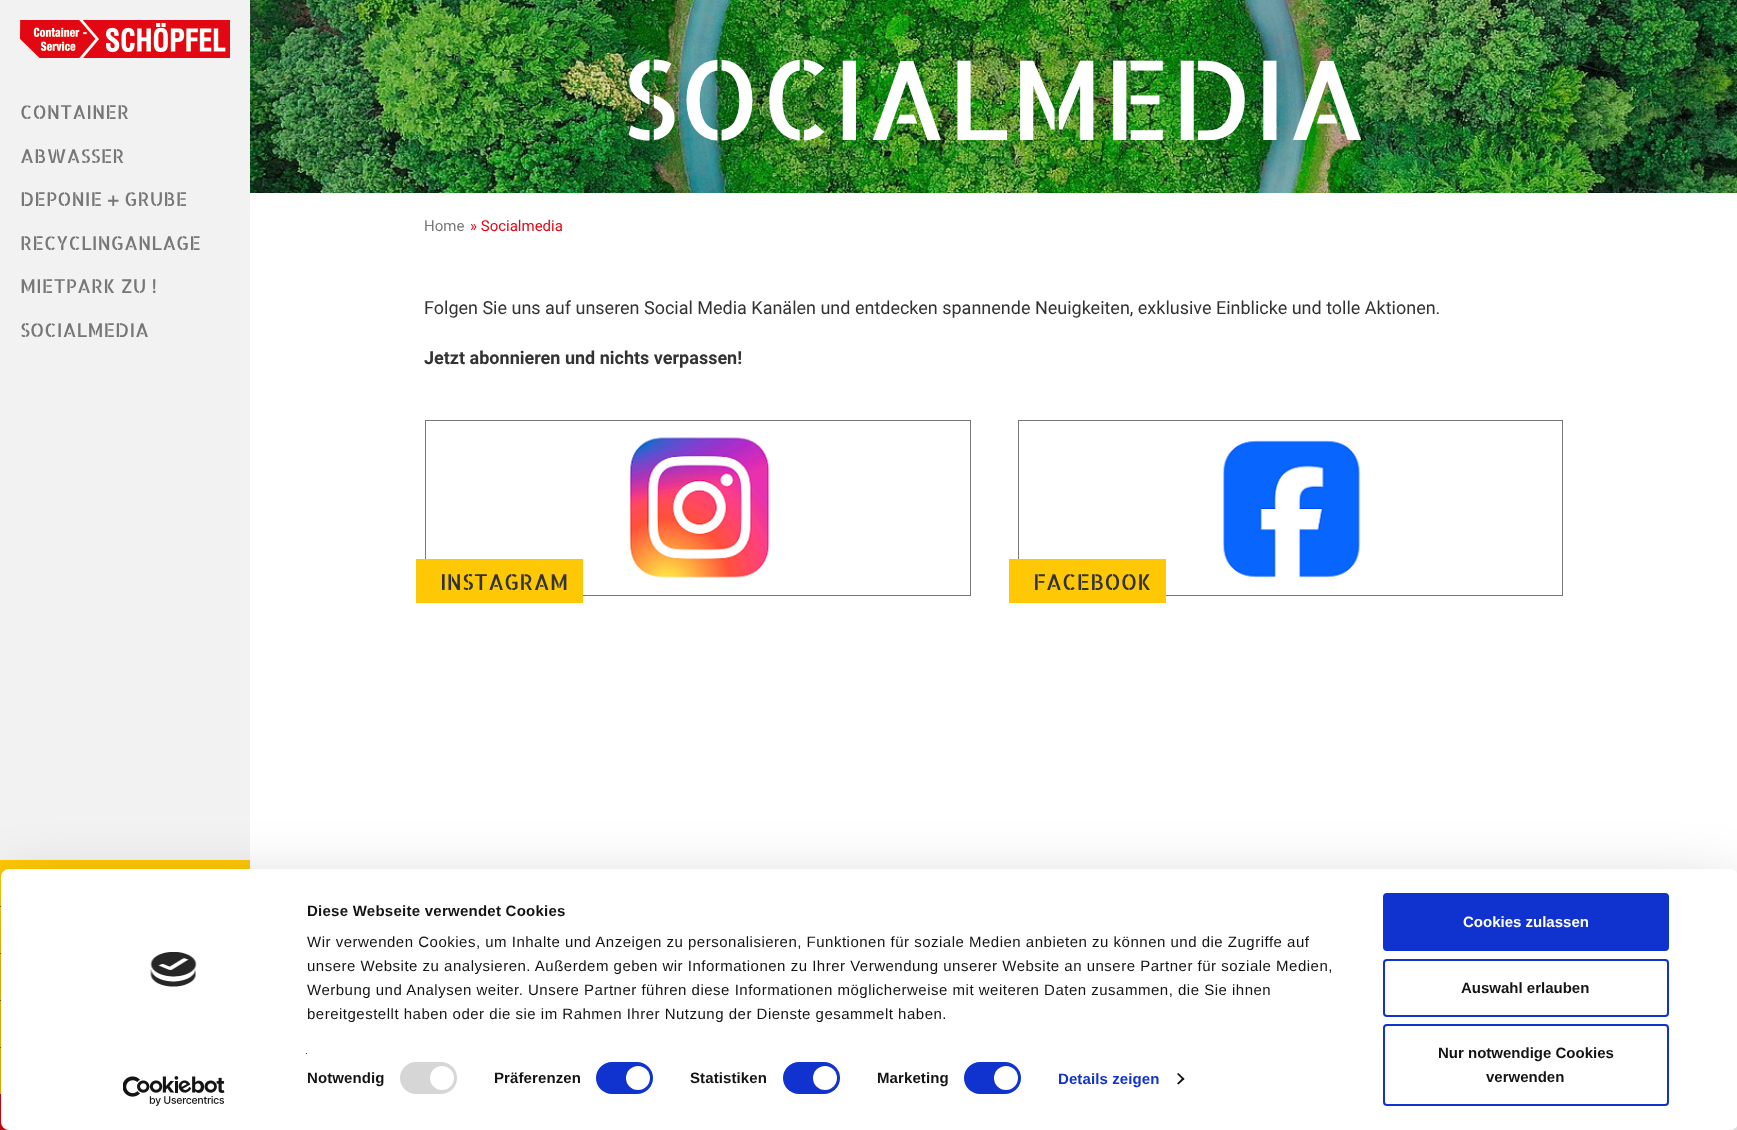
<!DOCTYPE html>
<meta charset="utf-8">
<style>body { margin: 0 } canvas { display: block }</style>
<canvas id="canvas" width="1737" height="1130"></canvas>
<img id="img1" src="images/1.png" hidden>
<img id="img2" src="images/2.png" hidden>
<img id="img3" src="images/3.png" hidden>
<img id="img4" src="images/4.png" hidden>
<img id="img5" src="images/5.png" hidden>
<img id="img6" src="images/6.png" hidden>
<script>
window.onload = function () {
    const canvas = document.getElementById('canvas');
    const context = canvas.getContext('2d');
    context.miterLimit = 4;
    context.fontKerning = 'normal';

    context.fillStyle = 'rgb(255, 255, 255)';
    context.fillRect(0, 0, 1737, 1130);
    context.fillStyle = 'rgb(242, 242, 242)';
    context.fillRect(0, 0, 250, 860);
    context.drawImage(document.getElementById('img1'), 20, 20, 210, 38);
    context.fillStyle = 'rgb(255, 200, 5)';
    context.fillRect(0, 860, 250, 234);
    context.fillStyle = 'rgb(128, 100, 3)';
    context.fillRect(0, 906, 1, 1);
    context.fillRect(0, 953, 1, 1);
    context.fillRect(0, 1000, 1, 1);
    context.fillRect(0, 1047, 1, 1);
    context.fillStyle = 'rgb(227, 6, 19)';
    context.fillRect(0, 1094, 9, 36);
    context.drawImage(document.getElementById('img2'), 250, 0, 1487, 193);
    context.strokeStyle = 'rgb(119, 119, 119)';
    context.strokeRect(425.5, 420.5, 545, 175);
    context.drawImage(document.getElementById('img3'), 629, 437, 141, 141);
    context.fillStyle = 'rgb(255, 200, 5)';
    context.fillRect(416, 559, 167, 44);
    context.strokeRect(1018.5, 420.5, 544, 175);
    context.drawImage(document.getElementById('img4'), 1222, 440, 139, 138);
    context.fillRect(1009, 559, 157, 44);
    context.fillStyle = 'rgba(0, 0, 0, 0.3)';
    context.filter = 'blur(35px)';
    context.beginPath();
    context.roundRect(1, 899, 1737, 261, 8);
    context.fill();
    context.filter = 'none';
    context.fillStyle = 'rgb(255, 255, 255)';
    context.beginPath();
    context.roundRect(1, 869, 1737, 261, 8);
    context.fill();
    context.drawImage(document.getElementById('img5'), 150, 952, 47, 35);
    context.drawImage(document.getElementById('img6'), 123, 1076, 102, 30);
    context.fillStyle = 'rgb(51, 51, 51)';
    context.fillRect(306, 1053, 1, 1);
    context.fillStyle = 'rgb(214, 214, 214)';
    context.beginPath();
    context.roundRect(400, 1062, 57, 32, 16);
    context.fill();
    context.fillStyle = 'rgb(255, 255, 255)';
    context.beginPath();
    context.arc(442, 1078, 12, 0, 2 * Math.PI);
    context.fill();
    context.fillStyle = 'rgb(16, 50, 207)';
    context.beginPath();
    context.roundRect(596, 1062, 57, 32, 16);
    context.fill();
    context.fillStyle = 'rgb(255, 255, 255)';
    context.beginPath();
    context.arc(638, 1078, 12, 0, 2 * Math.PI);
    context.fill();
    context.fillStyle = 'rgb(16, 50, 207)';
    context.beginPath();
    context.roundRect(783, 1062, 57, 32, 16);
    context.fill();
    context.fillStyle = 'rgb(255, 255, 255)';
    context.beginPath();
    context.arc(825, 1078, 12, 0, 2 * Math.PI);
    context.fill();
    context.fillStyle = 'rgb(16, 50, 207)';
    context.beginPath();
    context.roundRect(964, 1062, 57, 32, 16);
    context.fill();
    context.fillStyle = 'rgb(255, 255, 255)';
    context.beginPath();
    context.arc(1006, 1078, 12, 0, 2 * Math.PI);
    context.fill();
    context.fillStyle = 'rgb(20, 20, 20)';
    context.beginPath();
    context.moveTo(1178.5, 1073);
    context.lineTo(1184.5, 1079);
    context.lineTo(1183, 1080);
    context.lineTo(1177, 1074);
    context.closePath();
    context.fill();
    context.beginPath();
    context.moveTo(1183, 1077.5);
    context.lineTo(1184.5, 1079);
    context.lineTo(1178.5, 1084.5);
    context.lineTo(1177, 1083.5);
    context.closePath();
    context.fill();
    context.fillStyle = 'rgb(16, 50, 207)';
    context.beginPath();
    context.roundRect(1384, 894, 284, 56, 3);
    context.fill();
    context.strokeStyle = 'rgb(16, 50, 207)';
    context.lineWidth = 2;
    context.stroke();
    context.beginPath();
    context.roundRect(1384, 960, 284, 56, 3);
    context.stroke();
    context.beginPath();
    context.roundRect(1384, 1025, 284, 80, 3);
    context.stroke();
    context.font = '19px Allerta Stencil';
    context.fillStyle = 'rgb(119, 119, 119)';
    context.fillText('CONTAINER', 20, 119);
    context.fillText('ABWASSER', 20, 163);
    context.fillText('DEPONIE + GRUBE', 20, 206);
    context.fillText('RECYCLINGANLAGE', 20, 250);
    context.fillText('MIETPARK ZU !', 20, 293);
    context.fillText('SOCIALMEDIA', 20, 337);
    context.font = '110px Allerta Stencil';
    context.fillStyle = 'rgb(255, 255, 255)';
    context.fillText('SOCIALMEDIA', 620, 140);
    context.font = '15px Roboto';
    context.fillStyle = 'rgb(119, 119, 119)';
    context.fillText('Home', 424, 231);
    context.fillStyle = 'rgb(227, 6, 19)';
    context.fillText('» Socialmedia', 470, 231);
    context.font = '18px Roboto';
    context.fillStyle = 'rgb(51, 51, 51)';
    context.fillText('Folgen Sie uns auf unseren Social Media Kanälen und entdecken spannende Neuigkeiten, exklusive Einblicke und tolle Aktionen.', 424, 314);
    context.font = 'bold 18px Roboto';
    context.fillText('Jetzt abonnieren und nichts verpassen!', 424, 364);
    context.font = '22px Allerta Stencil';
    context.fillText('INSTAGRAM', 440, 590);
    context.fillText('FACEBOOK', 1033, 590);
    context.letterSpacing = '0.25px';
    context.font = 'bold 15px Liberation Sans';
    context.fillStyle = 'rgb(20, 20, 20)';
    context.fillText('Diese Webseite verwendet Cookies', 307, 916);
    context.letterSpacing = '0.5px';
    context.font = '15px Liberation Sans';
    context.fillText('Wir verwenden Cookies, um Inhalte und Anzeigen zu personalisieren, Funktionen für soziale Medien anbieten zu können und die Zugriffe auf', 307, 947);
    context.fillText('unsere Website zu analysieren. Außerdem geben wir Informationen zu Ihrer Verwendung unserer Website an unsere Partner für soziale Medien,', 307, 971);
    context.fillText('Werbung und Analysen weiter. Unsere Partner führen diese Informationen möglicherweise mit weiteren Daten zusammen, die Sie ihnen', 307, 995);
    context.fillText('bereitgestellt haben oder die sie im Rahmen Ihrer Nutzung der Dienste gesammelt haben.', 307, 1019);
    context.letterSpacing = '0.1px';
    context.font = 'bold 15px Liberation Sans';
    context.fillText('Notwendig', 307, 1083);
    context.fillText('Präferenzen', 494, 1083);
    context.fillText('Statistiken', 690, 1083);
    context.fillText('Marketing', 877, 1083);
    context.fillStyle = 'rgb(16, 50, 207)';
    context.fillText('Details zeigen', 1058, 1084);
    context.letterSpacing = '0px';
    context.fillStyle = 'rgb(255, 255, 255)';
    context.fillText('Cookies zulassen', 1463, 927);
    context.fillStyle = 'rgb(20, 20, 20)';
    context.fillText('Auswahl erlauben', 1461, 993);
    context.fillText('Nur notwendige Cookies', 1438, 1058);
    context.fillText('verwenden', 1486, 1082);
};
</script>
